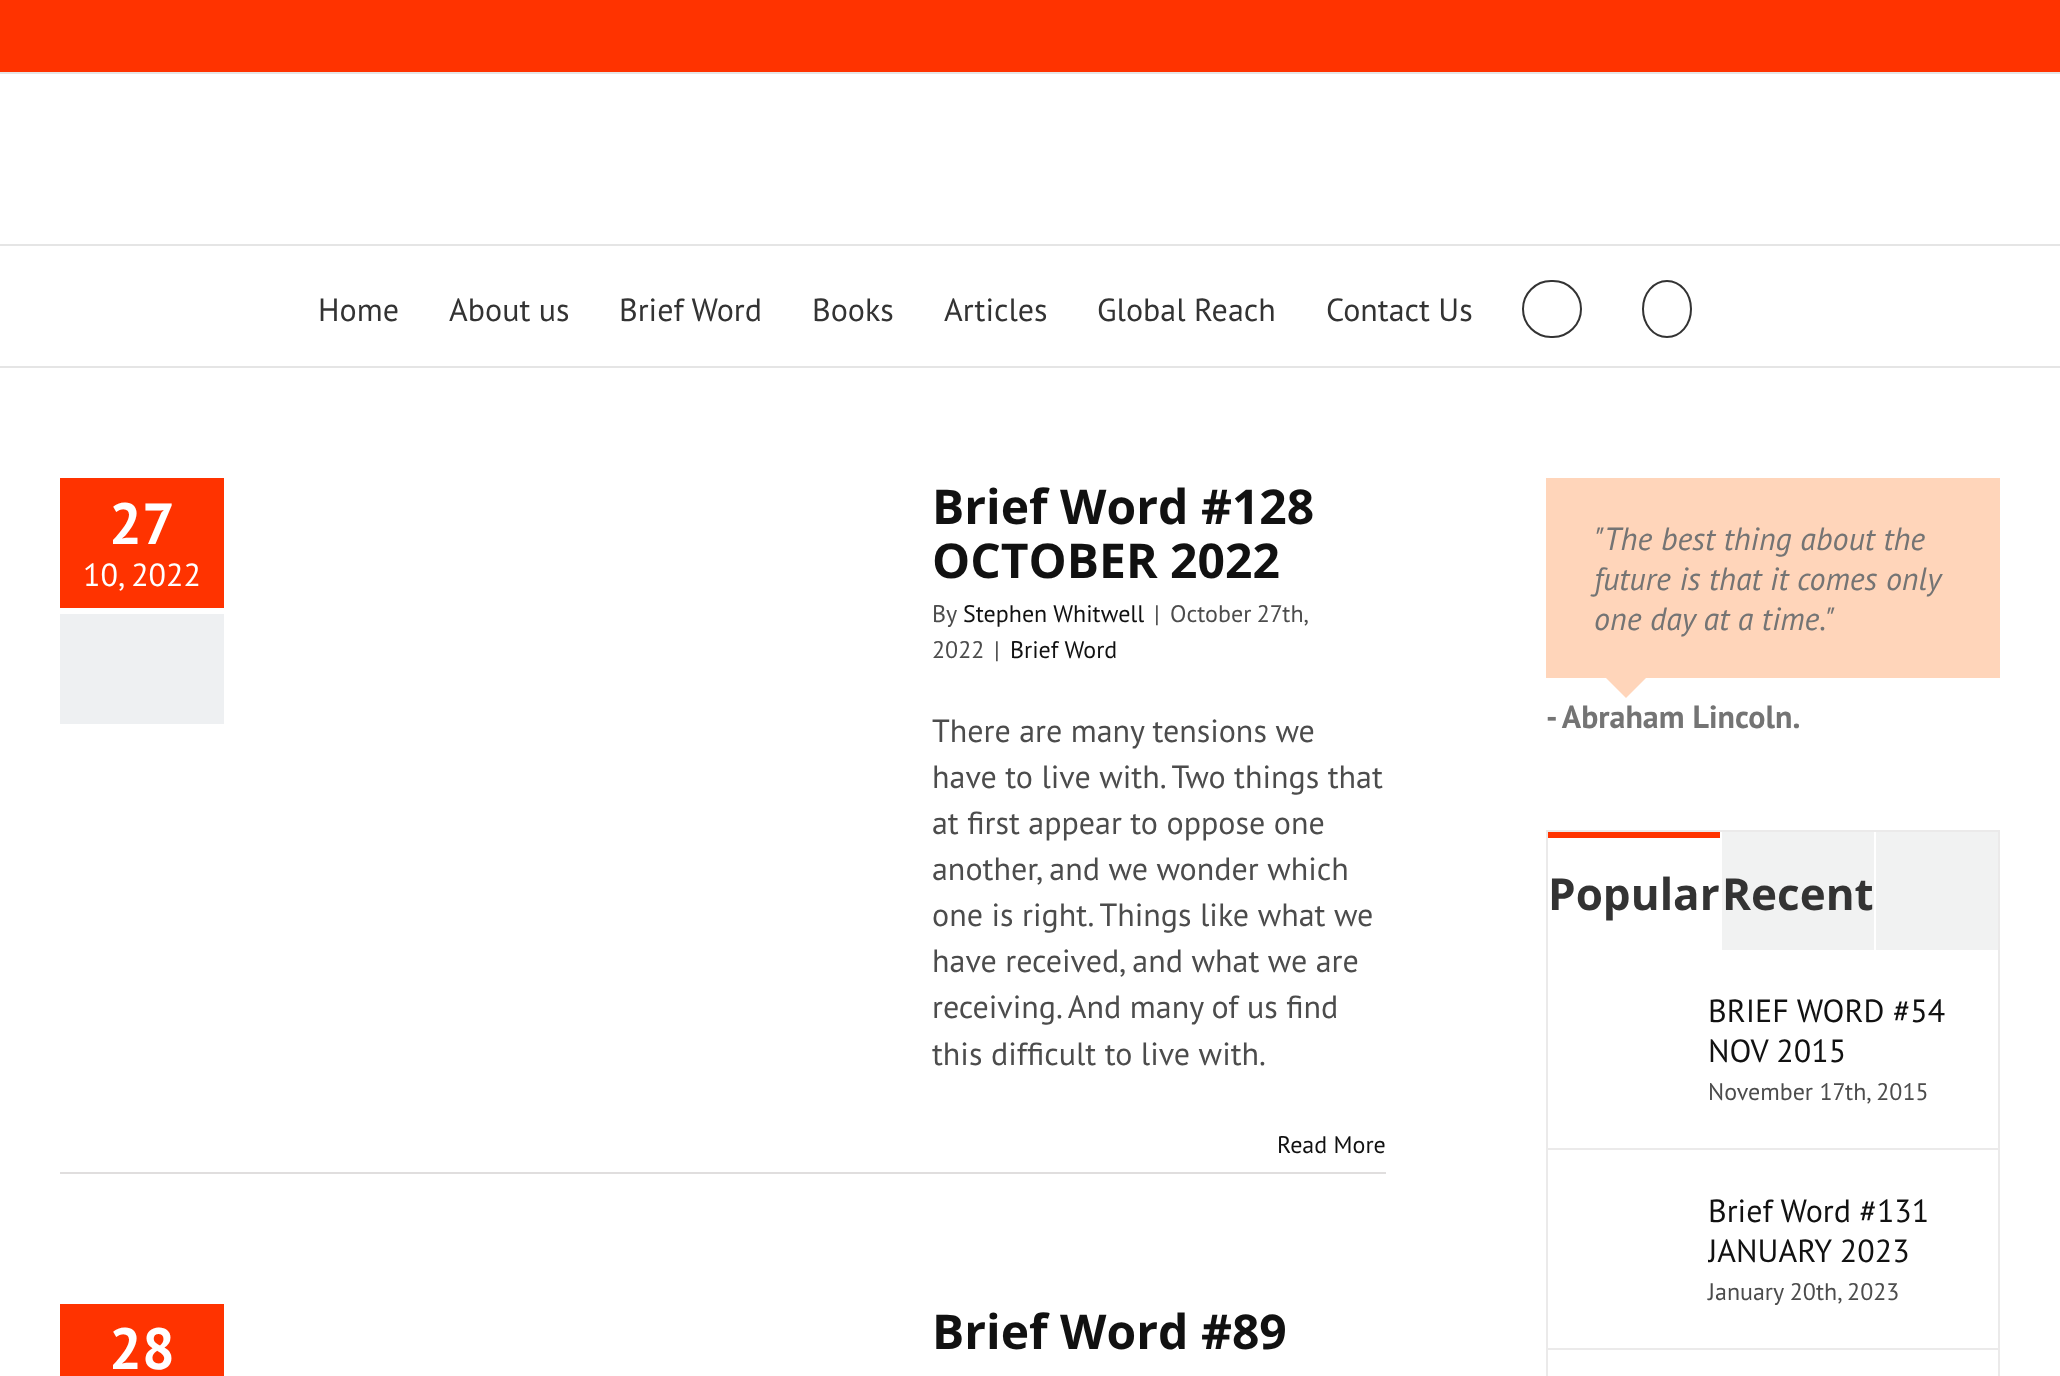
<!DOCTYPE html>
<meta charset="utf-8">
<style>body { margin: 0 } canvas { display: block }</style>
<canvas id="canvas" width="2060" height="1376"></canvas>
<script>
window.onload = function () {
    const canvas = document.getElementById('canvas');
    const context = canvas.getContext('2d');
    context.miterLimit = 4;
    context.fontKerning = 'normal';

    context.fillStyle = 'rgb(255, 255, 255)';
    context.fillRect(0, 0, 2060, 1376);
    context.fillStyle = 'rgb(255, 51, 0)';
    context.fillRect(0, 0, 2060, 72);
    context.fillStyle = 'rgb(229, 229, 229)';
    context.fillRect(0, 72, 2060, 2);
    context.fillRect(0, 244, 2060, 2);
    context.fillRect(0, 366, 2060, 2);
    context.beginPath();
    context.roundRect(1523, 281, 58, 56, 28);
    context.strokeStyle = 'rgb(51, 51, 51)';
    context.lineWidth = 2;
    context.stroke();
    context.beginPath();
    context.moveTo(1667, 281);
    context.bezierCurveTo(1680.5, 281, 1691, 293.5, 1691, 309);
    context.bezierCurveTo(1691, 324.5, 1680.5, 337, 1667, 337);
    context.bezierCurveTo(1653.5, 337, 1643, 324.5, 1643, 309);
    context.bezierCurveTo(1643, 293.5, 1653.5, 281, 1667, 281);
    context.closePath();
    context.stroke();
    context.fillStyle = 'rgb(255, 51, 0)';
    context.fillRect(60, 478, 164, 130);
    context.fillStyle = 'rgb(238, 240, 242)';
    context.fillRect(60, 614, 164, 110);
    context.fillStyle = 'rgb(224, 222, 222)';
    context.fillRect(60, 1172, 1326, 2);
    context.fillStyle = 'rgb(255, 51, 0)';
    context.fillRect(60, 1304, 164, 72);
    context.fillStyle = 'rgb(255, 213, 186)';
    context.fillRect(1546, 478, 454, 200);
    context.beginPath();
    context.moveTo(1646, 678);
    context.lineTo(1626, 698);
    context.lineTo(1606, 678);
    context.closePath();
    context.fill();
    context.strokeStyle = 'rgb(235, 234, 234)';
    context.strokeRect(1547, 831, 452, 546);
    context.fillStyle = 'rgb(255, 51, 0)';
    context.fillRect(1548, 832, 172, 6);
    context.fillStyle = 'rgb(241, 242, 242)';
    context.fillRect(1722, 832, 152, 118);
    context.fillRect(1876, 832, 122, 118);
    context.fillStyle = 'rgb(235, 234, 234)';
    context.fillRect(1548, 1148, 450, 2);
    context.fillRect(1548, 1348, 450, 2);
    context.font = '32px PT Sans';
    context.fillStyle = 'rgb(51, 51, 51)';
    context.fillText('Home', 318, 321);
    context.fillText('About us', 449, 321);
    context.fillText('Brief Word', 619, 321);
    context.fillText('Books', 812, 321);
    context.fillText('Articles', 944, 321);
    context.fillText('Global Reach', 1097, 321);
    context.fillText('Contact Us', 1326, 321);
    context.font = 'bold 58px PT Sans';
    context.fillStyle = 'rgb(255, 255, 255)';
    context.fillText('27', 109, 544);
    context.font = '32px PT Sans';
    context.fillText('10, 2022', 83, 586);
    context.font = 'bold 48px Open Sans';
    context.fillStyle = 'rgb(17, 17, 17)';
    context.fillText('Brief Word #128', 932, 524);
    context.fillText('OCTOBER 2022', 932, 578);
    context.font = '24px PT Sans';
    context.fillStyle = 'rgb(76, 76, 76)';
    context.fillText('By', 932, 622);
    context.fillStyle = 'rgb(17, 17, 17)';
    context.fillText('Stephen Whitwell', 963, 622);
    context.fillStyle = 'rgb(76, 76, 76)';
    context.fillText('|', 1154, 622);
    context.wordSpacing = '-1px';
    context.fillText('October 27th,', 1170, 622);
    context.wordSpacing = '0px';
    context.fillText('2022', 932, 658);
    context.fillText('|', 994, 658);
    context.fillStyle = 'rgb(17, 17, 17)';
    context.fillText('Brief Word', 1010, 658);
    context.font = '32px PT Sans';
    context.fillStyle = 'rgb(76, 76, 76)';
    context.fillText('There are many tensions we', 932, 742);
    context.fillText('have to live with. Two things that', 932, 788);
    context.fillText('at first appear to oppose one', 932, 834);
    context.fillText('another, and we wonder which', 932, 880);
    context.fillText('one is right. Things like what we', 932, 926);
    context.fillText('have received, and what we are', 932, 972);
    context.fillText('receiving. And many of us find', 932, 1018);
    context.fillText('this difficult to live with.', 932, 1065);
    context.font = '24px PT Sans';
    context.fillStyle = 'rgb(17, 17, 17)';
    context.fillText('Read More', 1277, 1153);
    context.font = 'bold 58px PT Sans';
    context.fillStyle = 'rgb(255, 255, 255)';
    context.fillText('28', 109, 1369);
    context.font = 'bold 48px Open Sans';
    context.fillStyle = 'rgb(17, 17, 17)';
    context.fillText('Brief Word #89', 932, 1349);
    context.font = 'italic 32px PT Sans';
    context.fillStyle = 'rgb(116, 116, 116)';
    context.fillText('"The best thing about the', 1594, 550);
    context.fillText('future is that it comes only', 1594, 590);
    context.fillText('one day at a time."', 1594, 630);
    context.font = 'bold 32px PT Sans';
    context.fillText('- Abraham Lincoln.', 1546, 728);
    context.font = 'bold 44px Open Sans';
    context.fillStyle = 'rgb(51, 51, 51)';
    context.fillText('Popular', 1548, 910);
    context.fillText('Recent', 1722, 910);
    context.font = '32px PT Sans';
    context.fillStyle = 'rgb(17, 17, 17)';
    context.fillText('BRIEF WORD #54', 1708, 1022);
    context.fillText('NOV 2015', 1708, 1062);
    context.font = '24px PT Sans';
    context.fillStyle = 'rgb(76, 76, 76)';
    context.fillText('November 17th, 2015', 1708, 1100);
    context.font = '32px PT Sans';
    context.fillStyle = 'rgb(17, 17, 17)';
    context.fillText('Brief Word #131', 1708, 1222);
    context.save();
    context.beginPath();
    context.rect(1708, 1190, 260, 80);
    context.clip();
    context.fillText('JANUARY 2023', 1708, 1262);
    context.restore();
    context.font = '24px PT Sans';
    context.fillStyle = 'rgb(76, 76, 76)';
    context.fillText('January 20th, 2023', 1708, 1300);
};
</script>
